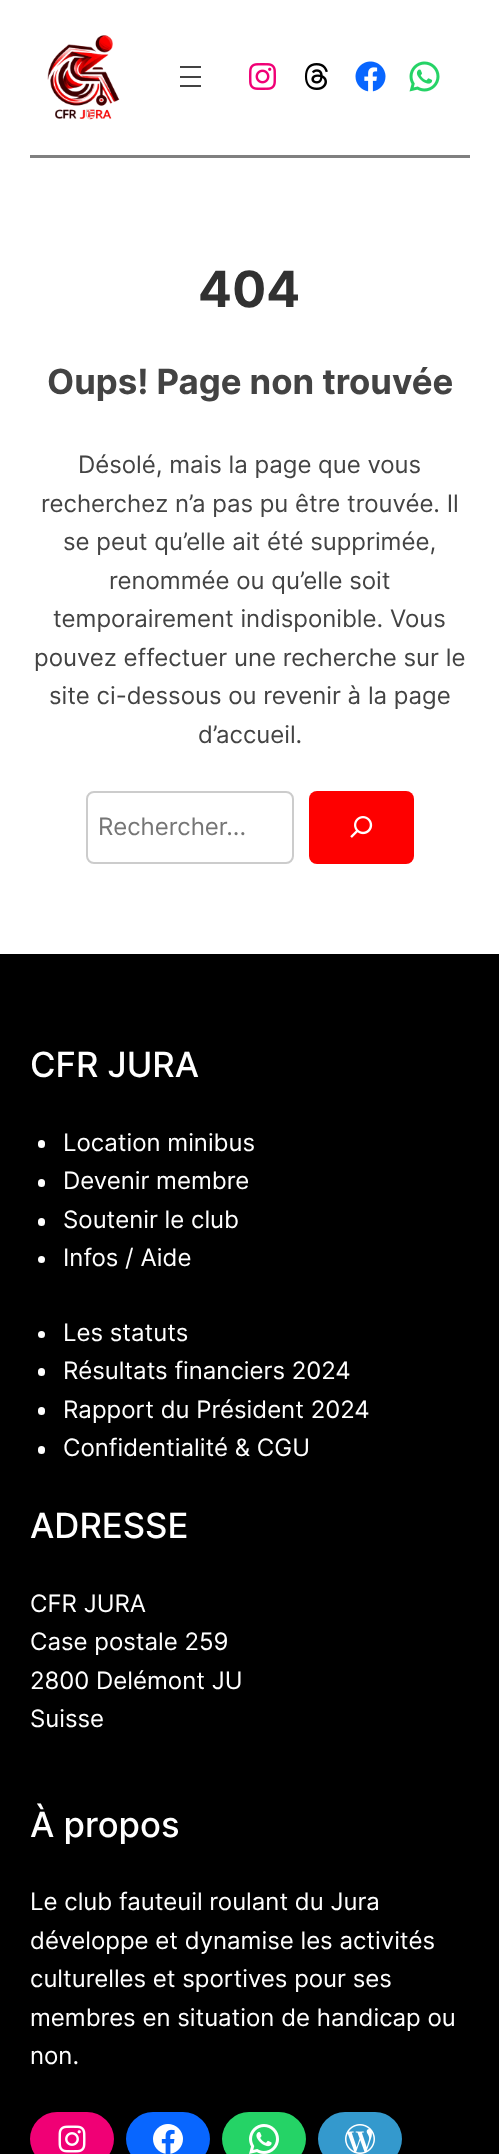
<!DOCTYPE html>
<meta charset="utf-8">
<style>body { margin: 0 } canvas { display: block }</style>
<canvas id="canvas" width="499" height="2154"></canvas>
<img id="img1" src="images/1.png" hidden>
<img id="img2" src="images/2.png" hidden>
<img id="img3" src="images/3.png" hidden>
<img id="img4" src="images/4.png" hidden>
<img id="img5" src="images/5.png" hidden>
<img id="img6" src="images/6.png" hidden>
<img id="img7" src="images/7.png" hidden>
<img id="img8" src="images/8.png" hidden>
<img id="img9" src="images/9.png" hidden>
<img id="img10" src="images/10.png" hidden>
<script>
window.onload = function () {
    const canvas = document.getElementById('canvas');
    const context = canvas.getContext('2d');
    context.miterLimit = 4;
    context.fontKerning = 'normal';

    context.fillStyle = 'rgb(255, 255, 255)';
    context.fillRect(0, 0, 499, 2154);
    context.drawImage(document.getElementById('img1'), 47, 35, 73, 85);
    context.fillStyle = 'rgb(67, 67, 67)';
    context.fillRect(180, 66, 21, 2);
    context.fillRect(180, 76, 21, 2);
    context.fillRect(180, 85, 21, 2);
    context.drawImage(document.getElementById('img2'), 249, 63, 27, 27);
    context.drawImage(document.getElementById('img3'), 304, 63, 24, 27);
    context.drawImage(document.getElementById('img4'), 355, 61, 31, 31);
    context.drawImage(document.getElementById('img5'), 409, 61, 31, 31);
    context.fillStyle = 'rgb(128, 128, 128)';
    context.fillRect(30, 155, 440, 3);
    context.beginPath();
    context.roundRect(87, 792, 206, 71, 7);
    context.strokeStyle = 'rgb(204, 204, 204)';
    context.lineWidth = 2;
    context.stroke();
    context.fillStyle = 'rgb(254, 0, 0)';
    context.beginPath();
    context.roundRect(309, 791, 105, 73, 8);
    context.fill();
    context.drawImage(document.getElementById('img6'), 350, 816, 23, 22);
    context.fillStyle = 'rgb(0, 0, 0)';
    context.fillRect(0, 954, 499, 1200);
    context.fillStyle = 'rgb(255, 255, 255)';
    context.beginPath();
    context.roundRect(38, 1140, 7, 8, 3.5);
    context.fill();
    context.beginPath();
    context.roundRect(38, 1179, 7, 8, 3.5);
    context.fill();
    context.beginPath();
    context.roundRect(38, 1218, 7, 8, 3.5);
    context.fill();
    context.beginPath();
    context.arc(41.5, 1259.5, 3.5, 0, 2 * Math.PI);
    context.fill();
    context.beginPath();
    context.arc(41.5, 1334.5, 3.5, 0, 2 * Math.PI);
    context.fill();
    context.beginPath();
    context.roundRect(38, 1368, 7, 8, 3.5);
    context.fill();
    context.beginPath();
    context.roundRect(38, 1407, 7, 8, 3.5);
    context.fill();
    context.beginPath();
    context.roundRect(38, 1446, 7, 8, 3.5);
    context.fill();
    context.fillStyle = 'rgb(240, 0, 117)';
    context.beginPath();
    context.roundRect(30, 2112, 84, 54, 27);
    context.fill();
    context.drawImage(document.getElementById('img7'), 58, 2125, 28, 28);
    context.fillStyle = 'rgb(8, 102, 255)';
    context.beginPath();
    context.roundRect(126, 2112, 84, 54, 27);
    context.fill();
    context.drawImage(document.getElementById('img8'), 153, 2124, 30, 30);
    context.fillStyle = 'rgb(37, 211, 102)';
    context.beginPath();
    context.roundRect(222, 2112, 84, 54, 27);
    context.fill();
    context.drawImage(document.getElementById('img9'), 249, 2124, 30, 30);
    context.fillStyle = 'rgb(52, 153, 205)';
    context.beginPath();
    context.roundRect(318, 2112, 84, 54, 27);
    context.fill();
    context.drawImage(document.getElementById('img10'), 345, 2124, 30, 30);
    context.font = 'bold 50px Inter';
    context.fillStyle = 'rgb(49, 49, 49)';
    context.fillText('404', 198, 307);
    context.font = 'bold 34.75px Inter';
    context.fillStyle = 'rgb(67, 67, 67)';
    context.fillText('Oups! Page non trouvée', 47, 394);
    context.font = '24px Inter';
    context.fillText('Désolé, mais la page que vous', 78, 473);
    context.fillText('recherchez n’a pas pu être trouvée. Il', 41, 512);
    context.fillText('se peut qu’elle ait été supprimée,', 63, 550);
    context.fillText('renommée ou qu’elle soit', 109, 589);
    context.fillText('temporairement indisponible. Vous', 53, 627);
    context.fillText('pouvez effectuer une recherche sur le', 34, 666);
    context.fillText('site ci-dessous ou revenir à la page', 49, 704);
    context.fillText('d’accueil.', 198, 743);
    context.fillStyle = 'rgb(117, 117, 117)';
    context.fillText('Rechercher...', 98, 835);
    context.font = '500 34.75px Inter';
    context.fillStyle = 'rgb(255, 255, 255)';
    context.fillText('CFR JURA', 30, 1077);
    context.font = '24px Inter';
    context.fillText('Location minibus', 63, 1151);
    context.fillText('Devenir membre', 63, 1189);
    context.fillText('Soutenir le club', 63, 1228);
    context.fillText('Infos / Aide', 63, 1266);
    context.fillText('Les statuts', 63, 1341);
    context.fillText('Résultats financiers 2024', 63, 1379);
    context.fillText('Rapport du Président 2024', 63, 1418);
    context.fillText('Confidentialité & CGU', 63, 1456);
    context.font = '500 34.75px Inter';
    context.fillText('ADRESSE', 30, 1538);
    context.font = '24px Inter';
    context.fillText('CFR JURA', 30, 1612);
    context.fillText('Case postale 259', 30, 1650);
    context.fillText('2800 Delémont JU', 30, 1689);
    context.fillText('Suisse', 30, 1727);
    context.font = '500 34.75px Inter';
    context.fillText('À propos', 30, 1837);
    context.font = '24px Inter';
    context.fillText('Le club fauteuil roulant du Jura', 30, 1910);
    context.fillText('développe et dynamise les activités', 30, 1949);
    context.fillText('culturelles et sportives pour ses', 30, 1987);
    context.fillText('membres en situation de handicap ou', 30, 2026);
    context.fillText('non.', 30, 2064);
};
</script>
